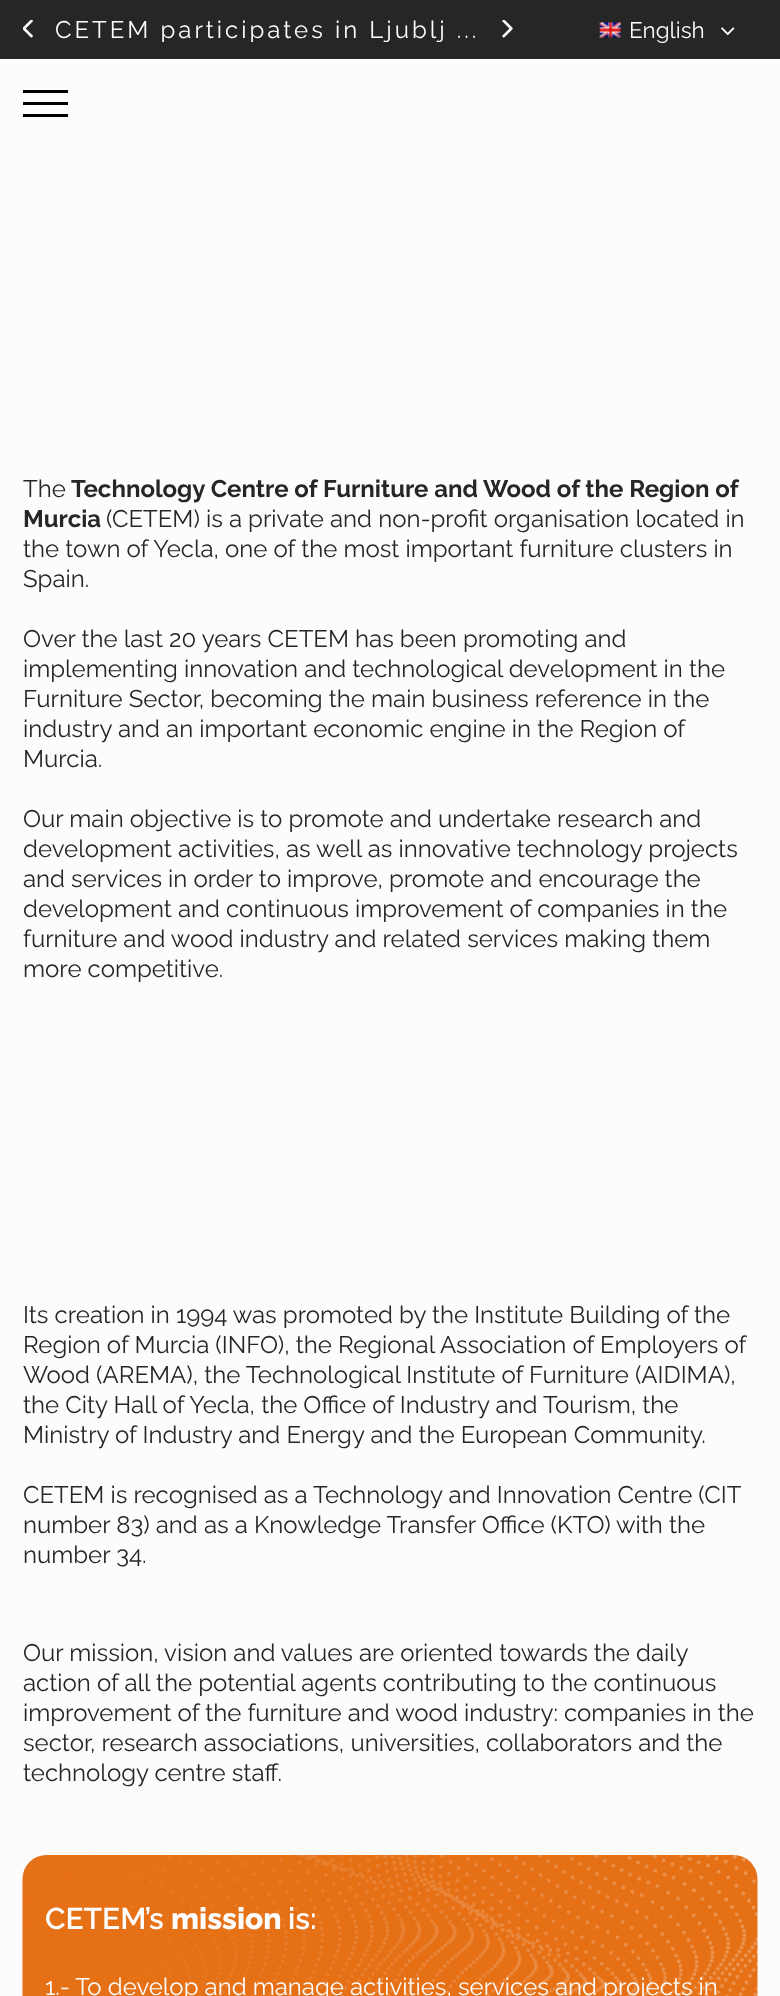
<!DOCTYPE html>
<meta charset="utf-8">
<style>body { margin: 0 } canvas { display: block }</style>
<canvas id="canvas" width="780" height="1996"></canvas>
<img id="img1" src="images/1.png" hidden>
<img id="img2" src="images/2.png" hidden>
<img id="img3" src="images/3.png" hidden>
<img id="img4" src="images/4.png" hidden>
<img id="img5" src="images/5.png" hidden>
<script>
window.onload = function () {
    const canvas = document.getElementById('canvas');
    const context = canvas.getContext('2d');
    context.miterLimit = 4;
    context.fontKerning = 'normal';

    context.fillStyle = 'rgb(252, 252, 252)';
    context.fillRect(0, 0, 780, 1996);
    context.fillStyle = 'rgb(38, 38, 38)';
    context.fillRect(0, 0, 780, 59);
    context.drawImage(document.getElementById('img1'), 23, 20, 10, 18);
    context.drawImage(document.getElementById('img2'), 502, 20, 11, 18);
    context.drawImage(document.getElementById('img3'), 599, 22, 22, 16);
    context.drawImage(document.getElementById('img4'), 721, 27, 14, 9);
    context.fillStyle = 'rgb(0, 0, 0)';
    context.fillRect(23, 90, 45, 3);
    context.fillRect(23, 102, 45, 3);
    context.fillRect(23, 114, 45, 3);
    context.drawImage(document.getElementById('img5'), 22, 1855, 736, 141);
    context.save();
    context.beginPath();
    context.rect(23, 15, 490, 27);
    context.clip();
    context.letterSpacing = '3px';
    context.font = '24px Raleway';
    context.fillStyle = 'rgb(252, 252, 252)';
    context.fillText('CETEM participates in Ljublj ...', 55, 38);
    context.restore();
    context.font = '22.5px Raleway';
    context.fillStyle = 'rgb(252, 252, 252)';
    context.fillText('English', 629, 38);
    context.font = '24px Raleway';
    context.fillStyle = 'rgb(38, 38, 38)';
    context.fillText('The', 23, 497);
    context.font = 'bold 24px Raleway';
    context.fillText('Technology Centre of Furniture and Wood of the Region of', 71, 497);
    context.fillText('Murcia', 23, 527);
    context.font = '24px Raleway';
    context.fillText('(CETEM) is a private and non-profit organisation located in', 106, 527);
    context.fillText('the town of Yecla, one of the most important furniture clusters in', 23, 557);
    context.fillText('Spain.', 23, 587);
    context.fillText('Over the last 20 years CETEM has been promoting and', 23, 647);
    context.fillText('implementing innovation and technological development in the', 23, 677);
    context.fillText('Furniture Sector, becoming the main business reference in the', 23, 707);
    context.fillText('industry and an important economic engine in the Region of', 23, 737);
    context.fillText('Murcia.', 23, 767);
    context.fillText('Our main objective is to promote and undertake research and', 23, 827);
    context.fillText('development activities, as well as innovative technology projects', 23, 857);
    context.fillText('and services in order to improve, promote and encourage the', 23, 887);
    context.fillText('development and continuous improvement of companies in the', 23, 917);
    context.fillText('furniture and wood industry and related services making them', 23, 947);
    context.fillText('more competitive.', 23, 977);
    context.fillText('Its creation in 1994 was promoted by the Institute Building of the', 23, 1323);
    context.fillText('Region of Murcia (INFO), the Regional Association of Employers of', 23, 1353);
    context.fillText('Wood (AREMA), the Technological Institute of Furniture (AIDIMA),', 23, 1383);
    context.fillText('the City Hall of Yecla, the Office of Industry and Tourism, the', 23, 1413);
    context.fillText('Ministry of Industry and Energy and the European Community.', 23, 1443);
    context.fillText('CETEM is recognised as a Technology and Innovation Centre (CIT', 23, 1503);
    context.fillText('number 83) and as a Knowledge Transfer Office (KTO) with the', 23, 1533);
    context.fillText('number 34.', 23, 1563);
    context.fillText('Our mission, vision and values are oriented towards the daily', 23, 1661);
    context.fillText('action of all the potential agents contributing to the continuous', 23, 1691);
    context.fillText('improvement of the furniture and wood industry: companies in the', 23, 1721);
    context.fillText('sector, research associations, universities, collaborators and the', 23, 1751);
    context.fillText('technology centre staff.', 23, 1781);
    context.font = '600 30px Raleway';
    context.fillStyle = 'rgb(252, 252, 252)';
    context.fillText('CETEM’s', 45, 1929);
    context.font = '800 30px Raleway';
    context.fillText('mission', 171, 1929);
    context.font = '600 30px Raleway';
    context.fillText('is:', 288, 1929);
    context.font = '24px Raleway';
    context.fillText('1.- To develop and manage activities, services and projects in', 45, 1995);
};
</script>
